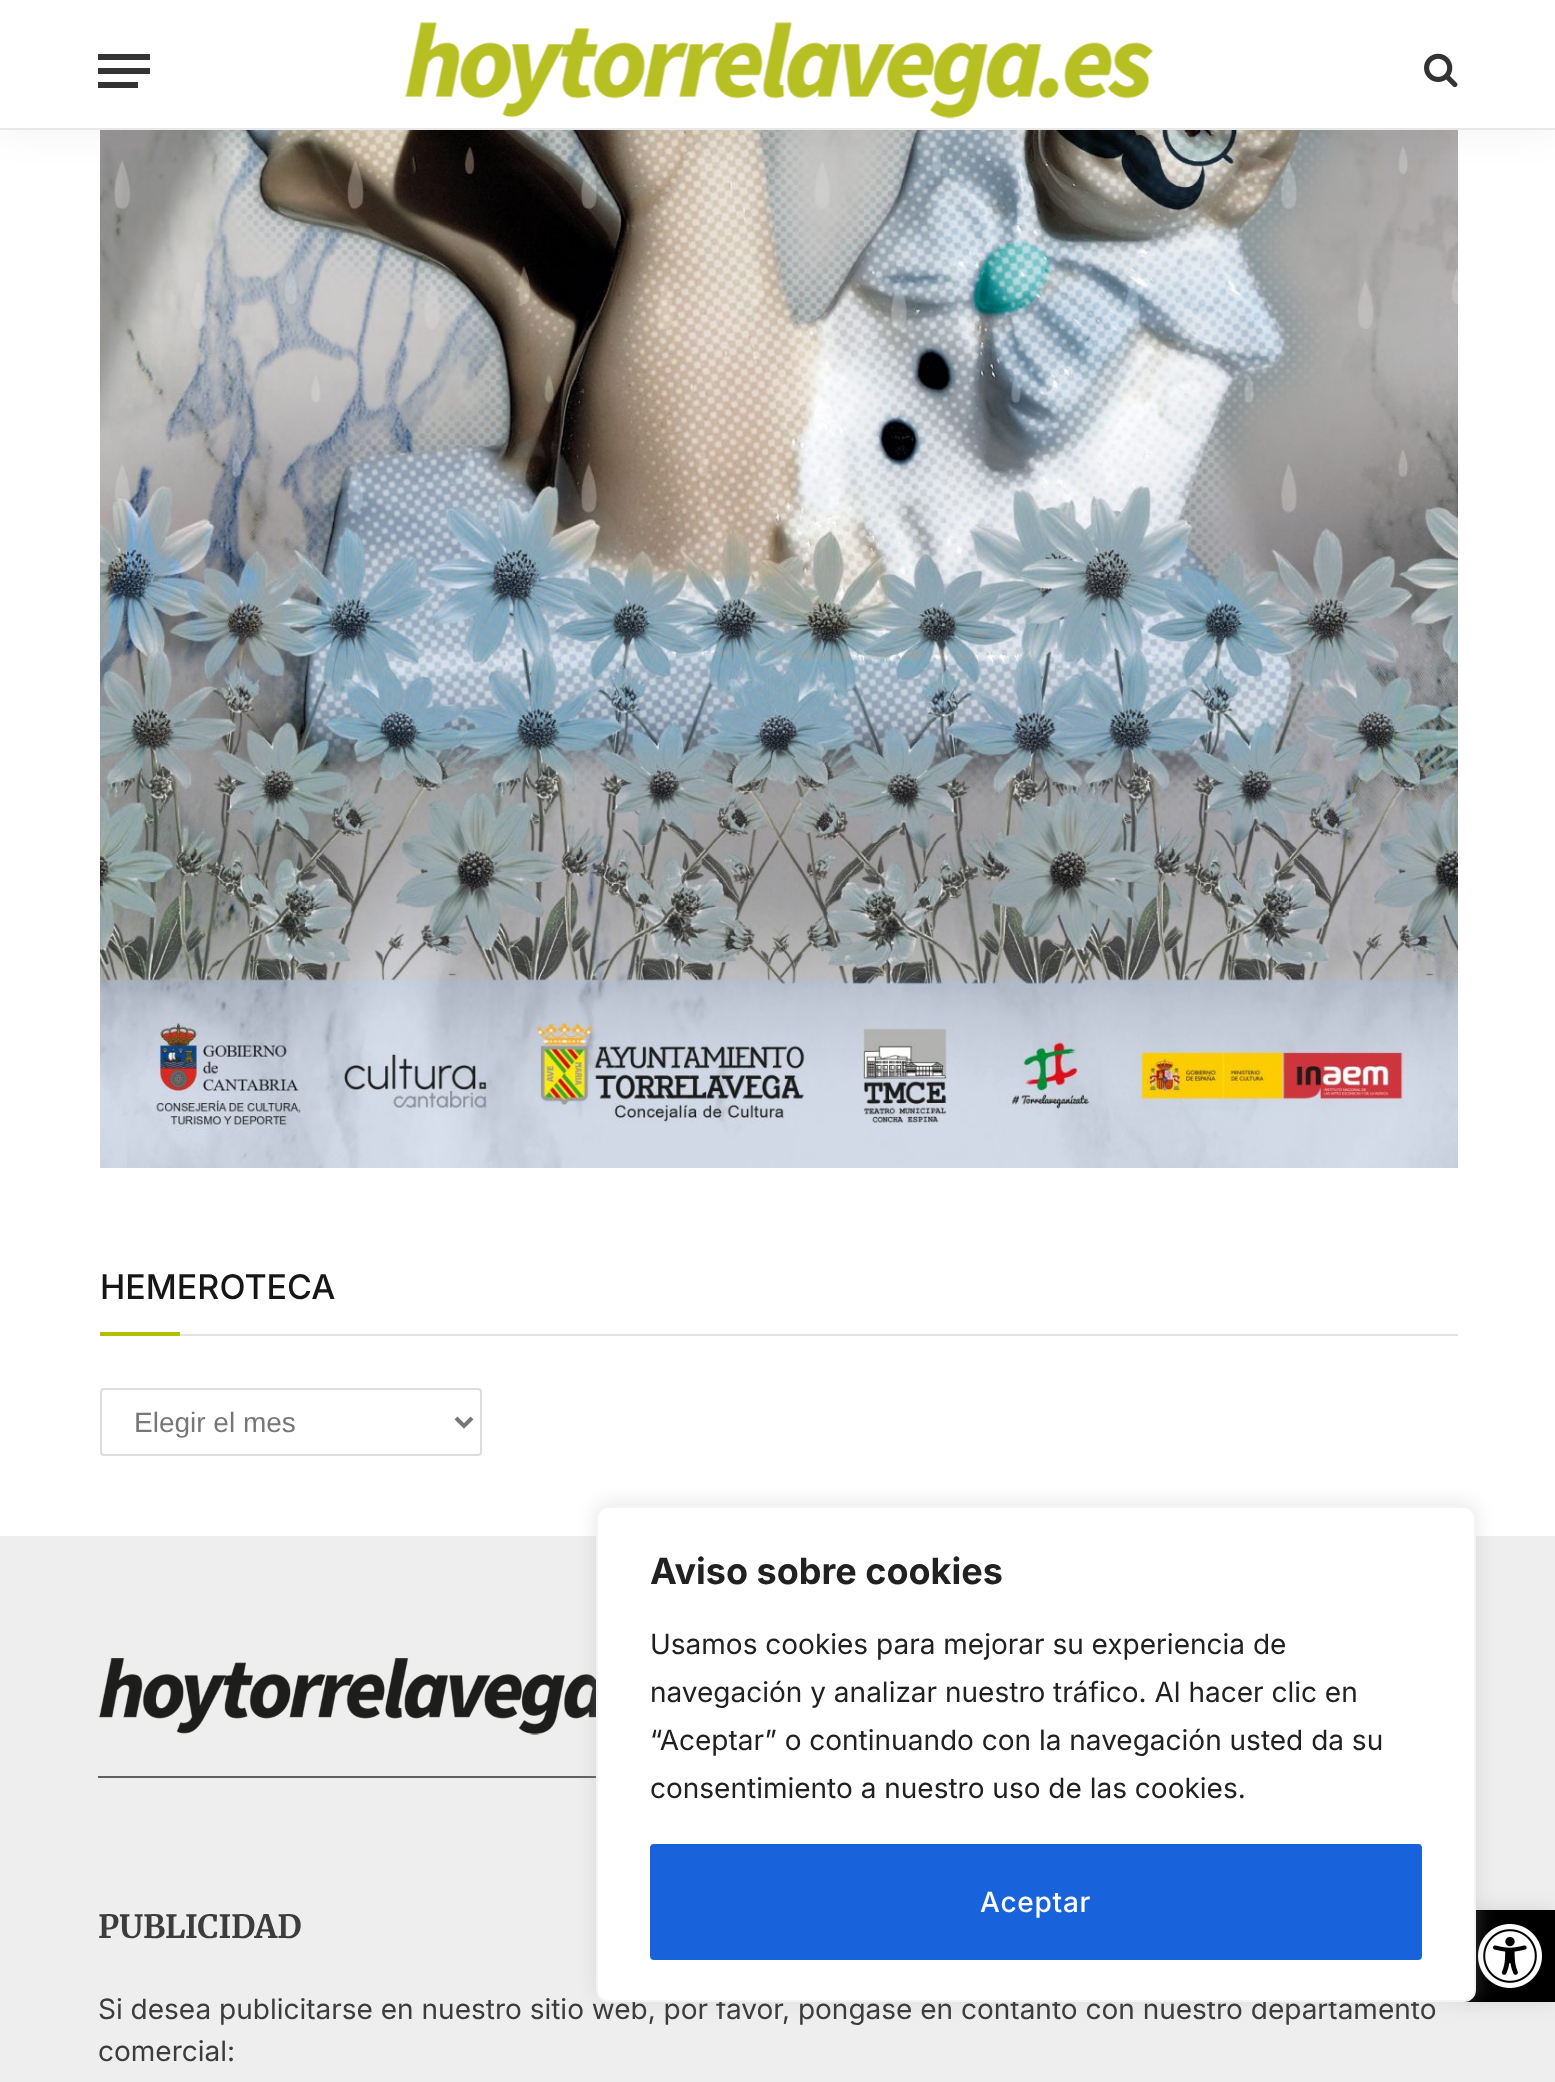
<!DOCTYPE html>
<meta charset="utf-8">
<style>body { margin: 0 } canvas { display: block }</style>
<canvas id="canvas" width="1555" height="2082"></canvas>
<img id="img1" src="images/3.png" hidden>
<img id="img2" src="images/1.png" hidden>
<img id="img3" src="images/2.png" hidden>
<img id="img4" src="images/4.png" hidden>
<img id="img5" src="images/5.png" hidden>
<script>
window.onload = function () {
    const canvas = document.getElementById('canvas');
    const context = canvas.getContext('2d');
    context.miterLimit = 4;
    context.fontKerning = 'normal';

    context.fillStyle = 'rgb(255, 255, 255)';
    context.fillRect(0, 0, 1555, 2082);
    context.drawImage(document.getElementById('img1'), 100, 130, 1358, 1038);
    context.fillStyle = 'rgba(0, 0, 0, 0.05)';
    context.filter = 'blur(20px)';
    context.beginPath();
    context.rect(0, 0, 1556, 130);
    context.fill();
    context.filter = 'none';
    context.fillStyle = 'rgb(255, 255, 255)';
    context.fillRect(0, 0, 1555, 128);
    context.fillStyle = 'rgb(232, 232, 232)';
    context.fillRect(0, 128, 1555, 2);
    context.fillStyle = 'rgb(51, 51, 51)';
    context.fillRect(98, 82, 40, 6);
    context.fillRect(98, 54, 52, 6);
    context.fillRect(98, 68, 52, 6);
    context.drawImage(document.getElementById('img2'), 404, 22, 750, 97);
    context.drawImage(document.getElementById('img3'), 1424, 53, 34, 35);
    context.fillStyle = 'rgb(226, 226, 226)';
    context.fillRect(180, 1334, 1278, 2);
    context.fillStyle = 'rgb(178, 191, 0)';
    context.fillRect(100, 1332, 80, 4);
    context.beginPath();
    context.roundRect(101, 1389, 380, 66, 3);
    context.strokeStyle = 'rgb(221, 221, 221)';
    context.lineWidth = 2;
    context.stroke();
    context.beginPath();
    context.moveTo(456, 1418);
    context.lineTo(464, 1426);
    context.lineTo(472, 1418);
    context.strokeStyle = 'rgb(119, 119, 119)';
    context.lineWidth = 4;
    context.stroke();
    context.fillStyle = 'rgb(238, 238, 238)';
    context.fillRect(0, 1536, 1555, 546);
    context.drawImage(document.getElementById('img4'), 98, 1658, 498, 77);
    context.fillStyle = 'rgb(95, 95, 95)';
    context.fillRect(98, 1776, 498, 2);
    context.fillStyle = 'rgba(0, 0, 0, 0.1)';
    context.filter = 'blur(10px)';
    context.beginPath();
    context.rect(1464, 1910, 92, 92);
    context.fill();
    context.filter = 'none';
    context.fillStyle = 'rgb(0, 0, 0)';
    context.fillRect(1464, 1910, 91, 92);
    context.drawImage(document.getElementById('img5'), 1478, 1924, 64, 64);
    context.fillStyle = 'rgba(172, 171, 171, 0.3)';
    context.filter = 'blur(10px)';
    context.beginPath();
    context.roundRect(596, 1504, 880, 496, 12);
    context.fill();
    context.filter = 'none';
    context.font = '500 34px Inter';
    context.fillStyle = 'rgb(22, 22, 22)';
    context.fillText('HEMEROTECA', 100, 1299);
    context.font = '28px Liberation Sans';
    context.fillStyle = 'rgb(119, 119, 119)';
    context.fillText('Elegir el mes', 134, 1432);
    context.font = 'bold 32px Merriweather';
    context.fillStyle = 'rgb(60, 60, 60)';
    context.fillText('PUBLICIDAD', 98, 1938);
    context.font = '28px Inter';
    context.fillText('Si desea publicitarse en nuestro sitio web, por favor, póngase en contanto con nuestro departamento', 98, 2019);
    context.fillText('comercial:', 98, 2061);
    context.fillStyle = 'rgb(255, 255, 255)';
    context.beginPath();
    context.roundRect(597, 1507, 878, 494, 11);
    context.fill();
    context.strokeStyle = 'rgb(244, 244, 244)';
    context.lineWidth = 2;
    context.stroke();
    context.font = 'bold 36px Inter';
    context.fillStyle = 'rgb(33, 33, 33)';
    context.fillText('Aviso sobre cookies', 650, 1584);
    context.font = '28px Inter';
    context.fillText('Usamos cookies para mejorar su experiencia de', 650, 1654);
    context.fillText('navegación y analizar nuestro tráfico. Al hacer clic en', 650, 1702);
    context.fillText('“Aceptar” o continuando con la navegación usted da su', 650, 1750);
    context.fillText('consentimiento a nuestro uso de las cookies.', 650, 1798);
    context.fillStyle = 'rgb(24, 99, 220)';
    context.beginPath();
    context.roundRect(652, 1846, 768, 112, 2);
    context.fill();
    context.strokeStyle = 'rgb(24, 99, 220)';
    context.lineWidth = 4;
    context.stroke();
    context.letterSpacing = '0.75px';
    context.font = '500 28px Inter';
    context.fillStyle = 'rgb(255, 255, 255)';
    context.fillText('Aceptar', 980, 1912);
};
</script>
